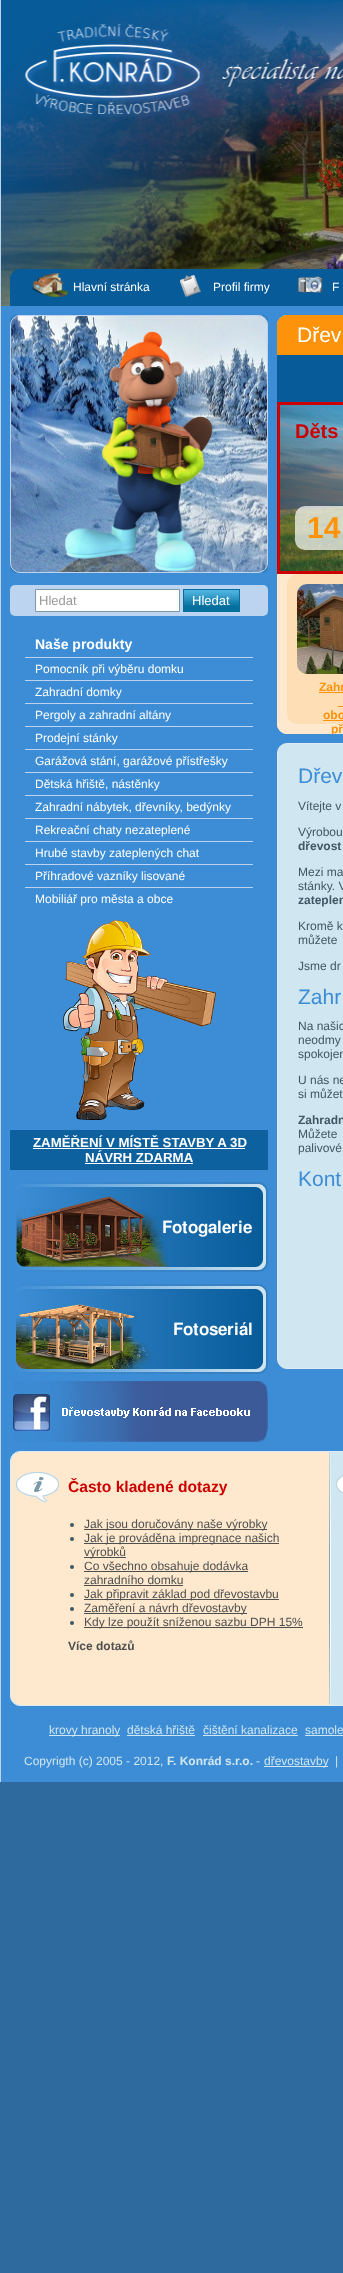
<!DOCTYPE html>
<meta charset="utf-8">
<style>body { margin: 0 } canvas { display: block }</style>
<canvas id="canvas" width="343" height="2273"></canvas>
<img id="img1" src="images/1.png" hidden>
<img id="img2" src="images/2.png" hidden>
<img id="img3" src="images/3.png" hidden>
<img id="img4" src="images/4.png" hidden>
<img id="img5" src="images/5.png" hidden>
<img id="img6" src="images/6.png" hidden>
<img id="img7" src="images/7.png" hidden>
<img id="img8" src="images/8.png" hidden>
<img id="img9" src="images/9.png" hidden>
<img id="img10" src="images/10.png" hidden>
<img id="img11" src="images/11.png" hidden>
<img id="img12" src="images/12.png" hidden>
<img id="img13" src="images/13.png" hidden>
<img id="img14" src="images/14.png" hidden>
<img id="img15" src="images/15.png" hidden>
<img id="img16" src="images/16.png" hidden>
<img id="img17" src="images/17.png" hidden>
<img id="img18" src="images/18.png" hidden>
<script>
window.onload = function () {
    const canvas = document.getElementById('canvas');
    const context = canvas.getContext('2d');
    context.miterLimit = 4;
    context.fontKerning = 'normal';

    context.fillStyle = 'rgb(46, 106, 158)';
    context.fillRect(0, 0, 343, 2273);
    context.fillStyle = 'rgb(188, 212, 239)';
    context.fillRect(0, 0, 1, 1782);
    context.fillStyle = 'rgb(60, 141, 213)';
    context.fillRect(1, 306, 342, 1476);
    context.drawImage(document.getElementById('img1'), 1, 0, 342, 306);
    context.drawImage(document.getElementById('img2'), 25, 24, 318, 94);
    context.fillStyle = 'rgb(7, 91, 152)';
    context.beginPath();
    context.moveTo(20, 269);
    context.lineTo(343, 269);
    context.bezierCurveTo(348.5, 269, 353, 273.5, 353, 279);
    context.lineTo(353, 306);
    context.lineTo(10, 306);
    context.lineTo(10, 279);
    context.bezierCurveTo(10, 273.5, 14.5, 269, 20, 269);
    context.closePath();
    context.fill();
    context.drawImage(document.getElementById('img3'), 32, 273, 37, 24);
    context.drawImage(document.getElementById('img4'), 180, 275, 21, 22);
    context.drawImage(document.getElementById('img5'), 297, 276, 27, 17);
    context.save();
    context.beginPath();
    context.rect(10, 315, 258, 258);
    context.clip();
    context.filter = 'blur(1.5px)';
    context.beginPath();
    context.roundRect(10, 315, 258, 258, 10);
    context.fill();
    context.filter = 'none';
    context.restore();
    context.drawImage(document.getElementById('img6'), 10, 315, 258, 258);
    context.beginPath();
    context.roundRect(10.5, 315.5, 257, 257, 9.5);
    context.strokeStyle = 'rgb(188, 212, 239)';
    context.stroke();
    context.drawImage(document.getElementById('img7'), 64, 331, 149, 241);
    context.fillStyle = 'rgb(188, 212, 239)';
    context.beginPath();
    context.roundRect(10, 585, 258, 31, 5);
    context.fill();
    context.fillStyle = 'rgb(255, 255, 255)';
    context.beginPath();
    context.rect(35.5, 589.5, 144, 22);
    context.fill();
    context.strokeStyle = 'rgb(122, 154, 168)';
    context.stroke();
    context.fillStyle = 'rgb(4, 110, 156)';
    context.fillRect(184, 606, 55, 5);
    context.drawImage(document.getElementById('img8'), 184, 590, 55, 16);
    context.strokeStyle = 'rgb(4, 110, 156)';
    context.strokeRect(183.5, 589.5, 56, 22);
    context.fillStyle = 'rgb(188, 212, 239)';
    context.fillRect(25, 657, 228, 1);
    context.fillRect(25, 680, 228, 1);
    context.fillRect(25, 703, 228, 1);
    context.fillRect(25, 726, 228, 1);
    context.fillRect(25, 749, 228, 1);
    context.fillRect(25, 772, 228, 1);
    context.fillRect(25, 795, 228, 1);
    context.fillRect(25, 818, 228, 1);
    context.fillRect(25, 841, 228, 1);
    context.fillRect(25, 864, 228, 1);
    context.fillRect(25, 887, 228, 1);
    context.drawImage(document.getElementById('img9'), 63, 920, 153, 200);
    context.fillStyle = 'rgb(13, 97, 159)';
    context.fillRect(10, 1130, 258, 40);
    context.fillStyle = 'rgb(255, 255, 255)';
    context.fillRect(33, 1148, 212, 1);
    context.fillRect(85, 1163, 108, 1);
    context.drawImage(document.getElementById('img10'), 16, 1182, 252, 90);
    context.drawImage(document.getElementById('img11'), 16, 1284, 252, 90);
    context.drawImage(document.getElementById('img12'), 13, 1381, 255, 61);
    context.beginPath();
    context.roundRect(277.5, 315.5, 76, 418, 9.5);
    context.strokeStyle = 'rgb(221, 236, 243)';
    context.stroke();
    context.fillStyle = 'rgb(252, 147, 10)';
    context.beginPath();
    context.moveTo(287, 315);
    context.lineTo(343, 315);
    context.bezierCurveTo(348.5, 315, 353, 319.5, 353, 325);
    context.lineTo(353, 355);
    context.lineTo(277, 355);
    context.lineTo(277, 325);
    context.bezierCurveTo(277, 319.5, 281.5, 315, 287, 315);
    context.closePath();
    context.fill();
    context.fillStyle = 'rgb(7, 91, 152)';
    context.fillRect(277, 355, 66, 47);
    context.drawImage(document.getElementById('img13'), 280, 405, 63, 166);
    context.strokeStyle = 'rgb(204, 0, 0)';
    context.lineWidth = 3;
    context.strokeRect(278.5, 403.5, 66, 169);
    context.drawImage(document.getElementById('img14'), 295, 506, 48, 44);
    context.fillStyle = 'rgb(254, 233, 206)';
    context.beginPath();
    context.moveTo(277, 574);
    context.lineTo(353, 574);
    context.lineTo(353, 724);
    context.bezierCurveTo(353, 729.5, 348.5, 734, 343, 734);
    context.lineTo(287, 734);
    context.bezierCurveTo(281.5, 734, 277, 729.5, 277, 724);
    context.closePath();
    context.fill();
    context.fillStyle = 'rgb(254, 222, 181)';
    context.beginPath();
    context.roundRect(287, 574, 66, 150, 10);
    context.fill();
    context.drawImage(document.getElementById('img15'), 297, 584, 46, 90);
    context.fillStyle = 'rgb(252, 147, 10)';
    context.fillRect(319, 692, 24, 1);
    context.fillRect(338, 706, 5, 1);
    context.fillRect(323, 720, 20, 1);
    context.fillStyle = 'rgb(208, 230, 240)';
    context.beginPath();
    context.roundRect(277.5, 743.5, 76, 625, 9.5);
    context.fill();
    context.strokeStyle = 'rgb(221, 236, 243)';
    context.lineWidth = 1;
    context.stroke();
    context.beginPath();
    context.roundRect(10.5, 1451.5, 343, 254, 9.5);
    context.fill();
    context.stroke();
    context.fillStyle = 'rgb(254, 233, 206)';
    context.beginPath();
    context.roundRect(11, 1452, 320, 253, [10, 0, 0, 10]);
    context.fill();
    context.drawImage(document.getElementById('img16'), 329, 1452, 2, 252);
    context.drawImage(document.getElementById('img17'), 16, 1472, 43, 30);
    context.fillStyle = 'rgb(64, 88, 99)';
    context.beginPath();
    context.arc(72, 1525, 2, 0, 2 * Math.PI);
    context.fill();
    context.fillStyle = 'rgb(78, 80, 80)';
    context.fillRect(84, 1529, 183, 1);
    context.fillStyle = 'rgb(64, 88, 99)';
    context.beginPath();
    context.arc(72, 1539, 2, 0, 2 * Math.PI);
    context.fill();
    context.fillStyle = 'rgb(78, 80, 80)';
    context.fillRect(84, 1543, 195, 1);
    context.fillRect(84, 1557, 42, 1);
    context.fillStyle = 'rgb(64, 88, 99)';
    context.beginPath();
    context.arc(72, 1567, 2, 0, 2 * Math.PI);
    context.fill();
    context.fillStyle = 'rgb(78, 80, 80)';
    context.fillRect(84, 1571, 164, 1);
    context.fillRect(84, 1585, 99, 1);
    context.fillStyle = 'rgb(64, 88, 99)';
    context.beginPath();
    context.arc(72, 1595, 2, 0, 2 * Math.PI);
    context.fill();
    context.fillStyle = 'rgb(78, 80, 80)';
    context.fillRect(84, 1599, 195, 1);
    context.fillStyle = 'rgb(64, 88, 99)';
    context.beginPath();
    context.arc(72, 1609, 2, 0, 2 * Math.PI);
    context.fill();
    context.fillStyle = 'rgb(78, 80, 80)';
    context.fillRect(84, 1613, 163, 1);
    context.fillStyle = 'rgb(64, 88, 99)';
    context.beginPath();
    context.arc(72, 1623, 2, 0, 2 * Math.PI);
    context.fill();
    context.fillStyle = 'rgb(78, 80, 80)';
    context.fillRect(84, 1627, 219, 1);
    context.drawImage(document.getElementById('img18'), 336, 1475, 7, 19);
    context.fillStyle = 'rgb(208, 230, 240)';
    context.fillRect(49, 1735, 71, 1);
    context.fillRect(127, 1735, 68, 1);
    context.fillRect(203, 1735, 95, 1);
    context.fillRect(305, 1735, 38, 1);
    context.fillRect(264, 1766, 64, 1);
    context.font = '12px Liberation Sans';
    context.fillStyle = 'rgb(255, 255, 255)';
    context.fillText('Hlavní stránka', 73, 291);
    context.fillText('Profil firmy', 213, 291);
    context.fillText('F', 332, 291);
    context.font = '13px Liberation Sans';
    context.fillStyle = 'rgb(153, 153, 153)';
    context.fillText('Hledat', 39, 605);
    context.fillStyle = 'rgb(255, 255, 255)';
    context.fillText('Hledat', 192, 605);
    context.font = 'bold 14px Liberation Sans';
    context.fillText('Naše produkty', 35, 649);
    context.font = '12px Liberation Sans';
    context.fillText('Pomocník při výběru domku', 35, 673);
    context.fillText('Zahradní domky', 35, 696);
    context.fillText('Pergoly a zahradní altány', 35, 719);
    context.fillText('Prodejní stánky', 35, 742);
    context.fillText('Garážová stání, garážové přístřešky', 35, 765);
    context.fillText('Dětská hřiště, nástěnky', 35, 788);
    context.fillText('Zahradní nábytek, dřevníky, bedýnky', 35, 811);
    context.fillText('Rekreační chaty nezateplené', 35, 834);
    context.fillText('Hrubé stavby zateplených chat', 35, 857);
    context.fillText('Příhradové vazníky lisované', 35, 880);
    context.fillText('Mobiliář pro města a obce', 35, 903);
    context.font = 'bold 13.25px Liberation Sans';
    context.fillText('ZAMĚŘENÍ V MÍSTĚ STAVBY A 3D', 33, 1147);
    context.fillText('NÁVRH ZDARMA', 85, 1162);
    context.font = '21px Liberation Sans';
    context.fillText('Dřev', 297, 342);
    context.font = 'bold 20px Liberation Sans';
    context.fillStyle = 'rgb(204, 0, 0)';
    context.fillText('Děts', 295, 438);
    context.font = 'bold 30px Liberation Sans';
    context.fillStyle = 'rgb(252, 147, 10)';
    context.fillText('14', 307, 538);
    context.font = 'bold 12px Liberation Sans';
    context.fillText('Zahr', 319, 691);
    context.fillText('obo', 323, 719);
    context.save();
    context.beginPath();
    context.rect(277, 574, 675, 160);
    context.clip();
    context.fillText('př', 331, 733);
    context.restore();
    context.font = '21px Liberation Sans';
    context.fillStyle = 'rgb(60, 141, 213)';
    context.fillText('Dřev', 298, 783);
    context.font = '12px Liberation Sans';
    context.fillStyle = 'rgb(64, 88, 99)';
    context.fillText('Vítejte v', 298, 810);
    context.fillText('Výrobou', 298, 836);
    context.font = 'bold 12px Liberation Sans';
    context.fillText('dřevost', 298, 850);
    context.font = '12px Liberation Sans';
    context.fillText('Mezi ma', 298, 876);
    context.fillText('stánky. V', 298, 890);
    context.font = 'bold 12px Liberation Sans';
    context.fillText('zateplen', 298, 904);
    context.font = '12px Liberation Sans';
    context.fillText('Kromě k', 298, 930);
    context.fillText('můžete', 298, 944);
    context.fillText('Jsme dr', 298, 970);
    context.font = '21px Liberation Sans';
    context.fillStyle = 'rgb(60, 141, 213)';
    context.fillText('Zahr', 298, 1004);
    context.font = '12px Liberation Sans';
    context.fillStyle = 'rgb(64, 88, 99)';
    context.fillText('Na našic', 298, 1030);
    context.fillText('neodmy', 298, 1044);
    context.fillText('spokojen', 298, 1058);
    context.fillText('U nás ne', 298, 1084);
    context.fillText('si můžet', 298, 1098);
    context.font = 'bold 12px Liberation Sans';
    context.fillText('Zahradn', 298, 1124);
    context.font = '12px Liberation Sans';
    context.fillText('Můžete', 298, 1138);
    context.fillText('palivové', 298, 1152);
    context.font = '21px Liberation Sans';
    context.fillStyle = 'rgb(60, 141, 213)';
    context.fillText('Kont', 298, 1186);
    context.font = 'bold 15.6px Liberation Sans';
    context.fillStyle = 'rgb(204, 0, 0)';
    context.fillText('Často kladené dotazy', 68, 1492);
    context.font = '12px Liberation Sans';
    context.fillStyle = 'rgb(78, 80, 80)';
    context.fillText('Jak jsou doručovány naše výrobky', 84, 1528);
    context.fillText('Jak je prováděna impregnace našich', 84, 1542);
    context.fillText('výrobků', 84, 1556);
    context.fillText('Co všechno obsahuje dodávka', 84, 1570);
    context.fillText('zahradního domku', 84, 1584);
    context.fillText('Jak připravit základ pod dřevostavbu', 84, 1598);
    context.fillText('Zaměření a návrh dřevostavby', 84, 1612);
    context.fillText('Kdy lze použít sníženou sazbu DPH 15%', 84, 1626);
    context.font = 'bold 12px Liberation Sans';
    context.fillText('Více dotazů', 68, 1650);
    context.font = '12px Liberation Sans';
    context.fillStyle = 'rgb(208, 230, 240)';
    context.fillText('krovy hranoly', 49, 1734);
    context.fillText('dětská hřiště', 127, 1734);
    context.fillText('čištění kanalizace', 203, 1734);
    context.fillText('samole', 305, 1734);
    context.fillText('Copyrigth (c) 2005 - 2012,', 24, 1765);
    context.font = 'bold 12px Liberation Sans';
    context.fillText('F. Konrád s.r.o.', 167, 1765);
    context.font = '12px Liberation Sans';
    context.fillText('-', 256, 1765);
    context.fillText('dřevostavby', 264, 1765);
    context.fillText('|', 335, 1765);
};
</script>
